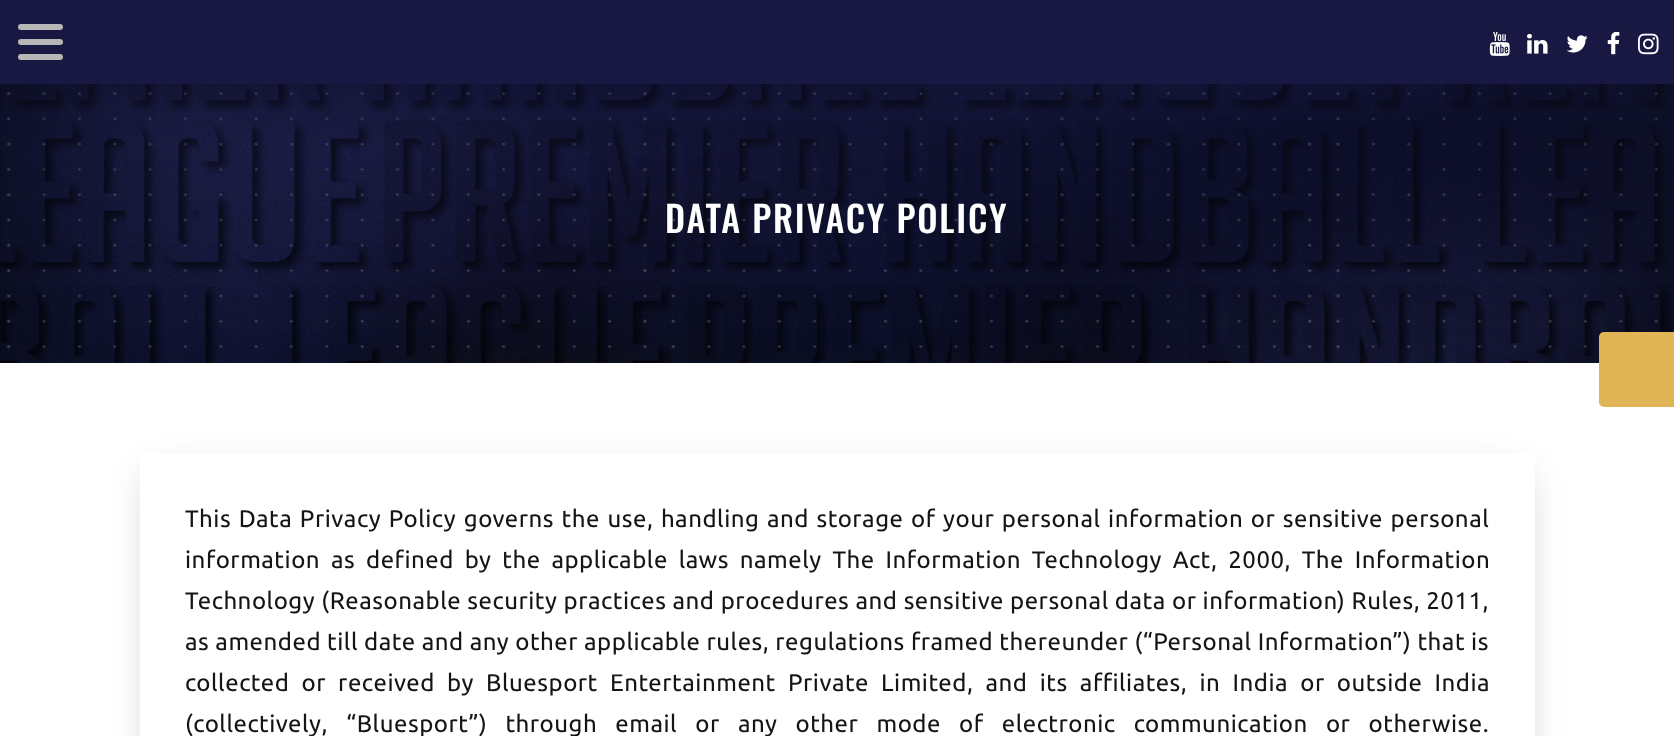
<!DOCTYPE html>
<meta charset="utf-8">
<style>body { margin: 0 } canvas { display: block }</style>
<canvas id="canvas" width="1674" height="736"></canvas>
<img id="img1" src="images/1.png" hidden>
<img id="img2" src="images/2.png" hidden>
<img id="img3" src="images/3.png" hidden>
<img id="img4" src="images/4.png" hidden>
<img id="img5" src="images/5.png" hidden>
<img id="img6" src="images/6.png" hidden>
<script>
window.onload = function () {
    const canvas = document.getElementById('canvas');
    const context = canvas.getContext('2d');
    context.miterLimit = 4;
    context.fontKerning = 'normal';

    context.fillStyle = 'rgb(255, 255, 255)';
    context.fillRect(0, 0, 1674, 736);
    context.fillStyle = 'rgb(24, 24, 66)';
    context.fillRect(0, 0, 1674, 84);
    context.fillStyle = 'rgb(183, 183, 183)';
    context.beginPath();
    context.roundRect(18, 39, 45, 6, 3);
    context.fill();
    context.beginPath();
    context.roundRect(18, 24, 45, 6, 3);
    context.fill();
    context.beginPath();
    context.roundRect(18, 54, 45, 6, 3);
    context.fill();
    context.drawImage(document.getElementById('img1'), 1489, 31, 21, 25);
    context.drawImage(document.getElementById('img2'), 1527, 33, 21, 21);
    context.drawImage(document.getElementById('img3'), 1566, 35, 22, 18);
    context.drawImage(document.getElementById('img4'), 1607, 31, 13, 24);
    context.drawImage(document.getElementById('img5'), 1638, 33, 21, 22);
    context.drawImage(document.getElementById('img6'), 0, 84, 1674, 279);
    context.fillStyle = 'rgba(0, 0, 0, 0.25)';
    context.filter = 'blur(19px)';
    context.beginPath();
    context.rect(152, 476, 1371, 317);
    context.fill();
    context.filter = 'none';
    context.fillStyle = 'rgb(255, 255, 255)';
    context.beginPath();
    context.roundRect(140, 453, 1395, 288, 5);
    context.fill();
    context.fillStyle = 'rgb(224, 181, 85)';
    context.beginPath();
    context.roundRect(1599, 332, 75, 75, [5, 0, 0, 5]);
    context.fill();
    context.letterSpacing = '1.75px';
    context.font = '500 36px Oswald';
    context.fillStyle = 'rgb(255, 255, 255)';
    context.fillText('DATA PRIVACY POLICY', 665, 233);
    context.letterSpacing = '0.52px';
    context.wordSpacing = '1.5px';
    context.font = '24px Ubuntu';
    context.fillStyle = 'rgb(21, 21, 21)';
    context.fillText('This Data Privacy Policy governs the use, handling and storage of your personal information or sensitive personal', 185, 527);
    context.wordSpacing = '4.75px';
    context.fillText('information as defined by the applicable laws namely The Information Technology Act, 2000, The Information', 185, 568);
    context.wordSpacing = '0.1px';
    context.fillText('Technology (Reasonable security practices and procedures and sensitive personal data or information) Rules, 2011,', 185, 609);
    context.wordSpacing = '0px';
    context.fillText('as amended till date and any other applicable rules, regulations framed thereunder (“Personal Information”) that is', 185, 650);
    context.wordSpacing = '6.1px';
    context.fillText('collected or received by Bluesport Entertainment Private Limited, and its affiliates, in India or outside India', 185, 691);
    context.wordSpacing = '12.1px';
    context.fillText('(collectively, “Bluesport”) through email or any other mode of electronic communication or otherwise.', 185, 732);
};
</script>
